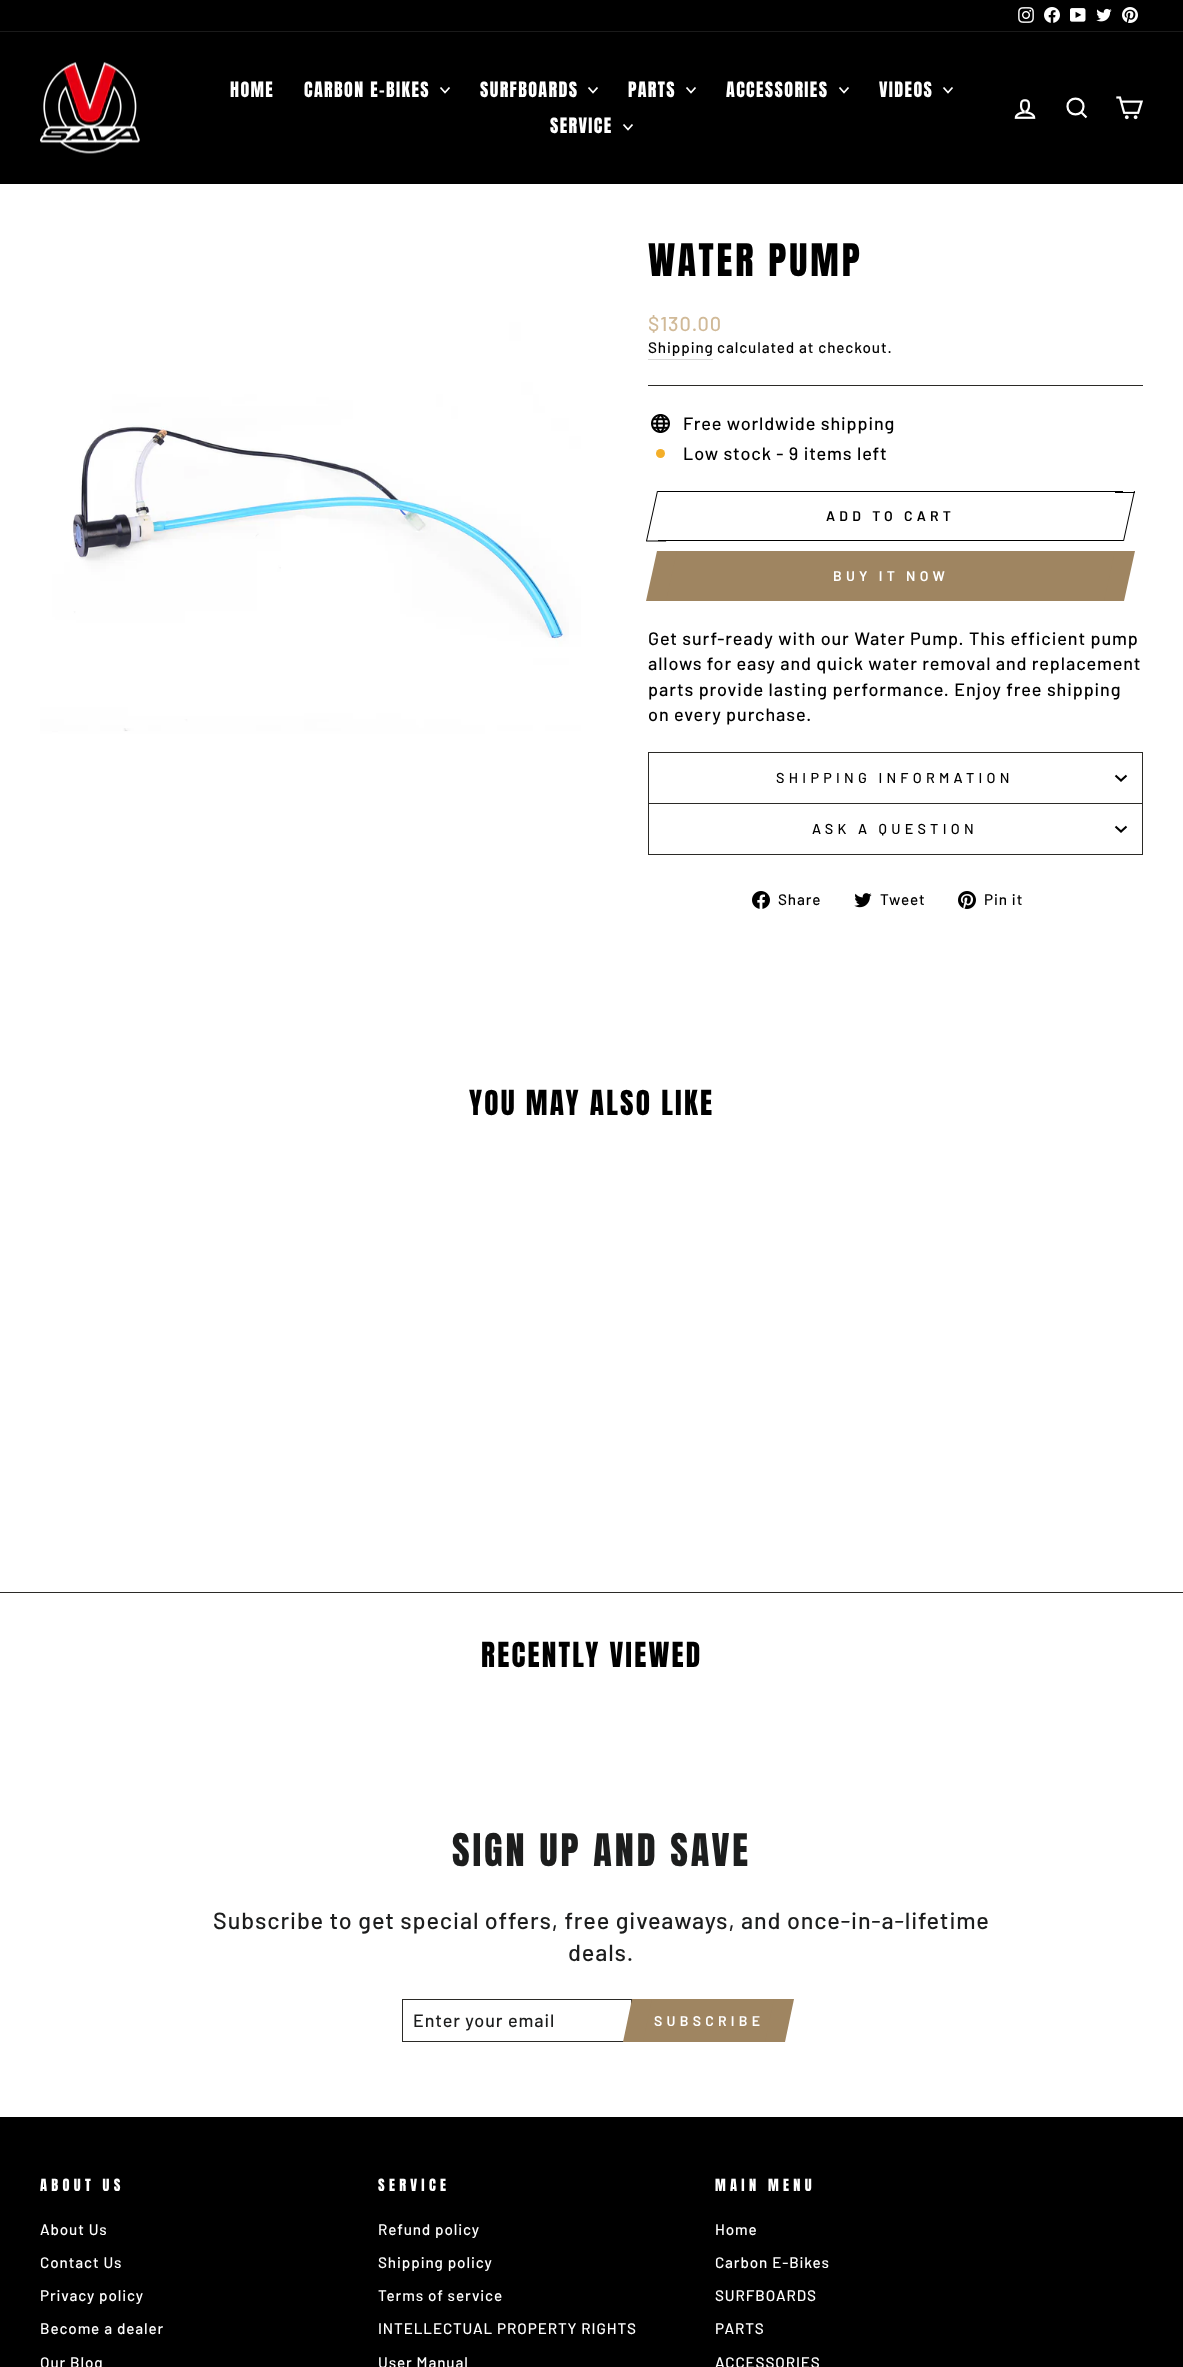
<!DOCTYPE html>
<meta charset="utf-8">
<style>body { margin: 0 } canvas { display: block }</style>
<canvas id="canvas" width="1183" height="2367"></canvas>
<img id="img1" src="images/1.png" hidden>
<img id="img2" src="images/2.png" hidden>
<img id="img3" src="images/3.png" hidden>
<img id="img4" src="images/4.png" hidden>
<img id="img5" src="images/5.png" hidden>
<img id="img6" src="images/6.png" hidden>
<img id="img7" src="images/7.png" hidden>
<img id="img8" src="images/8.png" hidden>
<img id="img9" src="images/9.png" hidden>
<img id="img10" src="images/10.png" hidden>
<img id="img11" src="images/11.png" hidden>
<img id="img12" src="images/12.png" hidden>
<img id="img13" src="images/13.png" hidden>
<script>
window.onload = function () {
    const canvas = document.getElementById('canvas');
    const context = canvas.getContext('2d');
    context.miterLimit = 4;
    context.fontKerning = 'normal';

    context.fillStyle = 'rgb(255, 255, 255)';
    context.fillRect(0, 0, 1183, 2367);
    context.fillStyle = 'rgb(0, 0, 0)';
    context.fillRect(0, 0, 1183, 31);
    context.drawImage(document.getElementById('img1'), 1018, 7, 16, 16);
    context.drawImage(document.getElementById('img2'), 1044, 7, 16, 16);
    context.drawImage(document.getElementById('img3'), 1070, 8, 16, 14);
    context.drawImage(document.getElementById('img4'), 1096, 8, 16, 14);
    context.drawImage(document.getElementById('img5'), 1122, 7, 16, 16);
    context.fillRect(0, 32, 1183, 152);
    context.fillStyle = 'rgb(26, 26, 26)';
    context.fillRect(0, 31, 1183, 1);
    context.drawImage(document.getElementById('img6'), 40, 62, 100, 92);
    context.beginPath();
    context.moveTo(440.5, 87.5);
    context.lineTo(445, 92.5);
    context.lineTo(449.5, 87.5);
    context.strokeStyle = 'rgb(255, 255, 255)';
    context.lineWidth = 1.8;
    context.stroke();
    context.beginPath();
    context.moveTo(588.5, 87.5);
    context.lineTo(593, 92.5);
    context.lineTo(597.5, 87.5);
    context.stroke();
    context.beginPath();
    context.moveTo(686.5, 87.5);
    context.lineTo(691, 92.5);
    context.lineTo(695.5, 87.5);
    context.stroke();
    context.beginPath();
    context.moveTo(839.5, 87.5);
    context.lineTo(844, 92.5);
    context.lineTo(848.5, 87.5);
    context.stroke();
    context.beginPath();
    context.moveTo(943.5, 87.5);
    context.lineTo(948, 92.5);
    context.lineTo(952.5, 87.5);
    context.stroke();
    context.beginPath();
    context.moveTo(623.5, 124.5);
    context.lineTo(628, 129.5);
    context.lineTo(632.5, 124.5);
    context.stroke();
    context.drawImage(document.getElementById('img7'), 1014, 99, 22, 20);
    context.beginPath();
    context.moveTo(1083.5, 106.5);
    context.bezierCurveTo(1083.5, 117, 1067.5, 117, 1067.5, 106.5);
    context.bezierCurveTo(1067.5, 96, 1083.5, 96, 1083.5, 106.5);
    context.closePath();
    context.moveTo(1086.5, 117.5);
    context.lineTo(1081.5, 112.5);
    context.lineWidth = 2.2;
    context.stroke();
    context.drawImage(document.getElementById('img8'), 1116, 96, 27, 24);
    context.drawImage(document.getElementById('img9'), 40, 238, 541, 541);
    context.fillStyle = 'rgb(217, 217, 217)';
    context.fillRect(648, 359, 65, 1);
    context.fillStyle = 'rgb(43, 42, 39)';
    context.fillRect(648, 385, 495, 1);
    context.drawImage(document.getElementById('img10'), 651, 414, 19, 19);
    context.fillStyle = 'rgb(244, 175, 41)';
    context.beginPath();
    context.arc(660.5, 453.5, 4.5, 0, 2 * Math.PI);
    context.fill();
    context.fillStyle = 'rgb(0, 0, 0)';
    context.fillRect(658, 491, 465, 1);
    context.fillRect(658, 540, 465, 1);
    context.beginPath();
    context.moveTo(646.5, 540.5);
    context.lineTo(666.5, 540.5);
    context.lineTo(666, 541.5);
    context.lineTo(646, 541.5);
    context.closePath();
    context.fill();
    context.beginPath();
    context.moveTo(657, 491);
    context.lineTo(658, 491);
    context.lineTo(647, 541);
    context.lineTo(646, 541);
    context.closePath();
    context.fill();
    context.fillRect(1115, 492, 20, 1);
    context.beginPath();
    context.moveTo(1134, 491);
    context.lineTo(1135, 491);
    context.lineTo(1124, 541);
    context.lineTo(1123, 541);
    context.closePath();
    context.fill();
    context.fillStyle = 'rgb(159, 133, 97)';
    context.fillRect(666, 551, 449, 50);
    context.beginPath();
    context.moveTo(657, 551);
    context.lineTo(677, 551);
    context.lineTo(666, 601);
    context.lineTo(646, 601);
    context.closePath();
    context.fill();
    context.beginPath();
    context.moveTo(1115, 551);
    context.lineTo(1135, 551);
    context.lineTo(1124, 601);
    context.lineTo(1104, 601);
    context.closePath();
    context.fill();
    context.fillStyle = 'rgb(43, 42, 39)';
    context.fillRect(648, 803, 495, 1);
    context.fillRect(648, 752, 495, 1);
    context.fillRect(1142, 752, 1, 51);
    context.fillRect(648, 752, 1, 51);
    context.beginPath();
    context.moveTo(1115.5, 775.5);
    context.lineTo(1121, 780.5);
    context.lineTo(1126.5, 775.5);
    context.strokeStyle = 'rgb(0, 0, 0)';
    context.lineWidth = 2.1;
    context.stroke();
    context.fillRect(648, 854, 495, 1);
    context.fillRect(1142, 804, 1, 50);
    context.fillRect(648, 804, 1, 50);
    context.beginPath();
    context.moveTo(1115.5, 826.5);
    context.lineTo(1121, 831.5);
    context.lineTo(1126.5, 826.5);
    context.stroke();
    context.drawImage(document.getElementById('img11'), 752, 891, 18, 18);
    context.drawImage(document.getElementById('img12'), 854, 893, 18, 15);
    context.drawImage(document.getElementById('img13'), 958, 891, 18, 18);
    context.fillRect(0, 1592, 1183, 1);
    context.strokeStyle = 'rgb(43, 42, 39)';
    context.lineWidth = 1;
    context.strokeRect(402.5, 1999.5, 229, 42);
    context.fillStyle = 'rgb(159, 133, 97)';
    context.fillRect(643, 1999, 131, 43);
    context.beginPath();
    context.moveTo(632, 1999);
    context.lineTo(652, 1999);
    context.lineTo(643, 2042);
    context.lineTo(623, 2042);
    context.closePath();
    context.fill();
    context.beginPath();
    context.moveTo(774, 1999);
    context.lineTo(794, 1999);
    context.lineTo(785, 2042);
    context.lineTo(765, 2042);
    context.closePath();
    context.fill();
    context.fillStyle = 'rgb(0, 0, 0)';
    context.fillRect(0, 2117, 1183, 250);
    context.letterSpacing = '1.4px';
    context.font = '18px Anton';
    context.fillStyle = 'rgb(255, 255, 255)';
    context.fillText('HOME', 230, 97);
    context.fillText('CARBON E-BIKES', 304, 97);
    context.fillText('SURFBOARDS', 480, 97);
    context.fillText('PARTS', 628, 97);
    context.fillText('ACCESSORIES', 726, 97);
    context.fillText('VIDEOS', 879, 97);
    context.fillText('SERVICE', 550, 133);
    context.letterSpacing = '2.9px';
    context.font = '38.25px Anton';
    context.fillStyle = 'rgb(0, 0, 0)';
    context.fillText('WATER PUMP', 648, 276);
    context.letterSpacing = '0.9px';
    context.font = '500 20px Barlow';
    context.fillStyle = 'rgb(209, 186, 152)';
    context.fillText('$130.00', 648, 331);
    context.font = '500 15.25px Barlow';
    context.fillStyle = 'rgb(0, 0, 0)';
    context.fillText('Shipping', 648, 353);
    context.fillText('calculated at checkout.', 717, 353);
    context.font = '500 18px Barlow';
    context.fillText('Free worldwide shipping', 683, 430);
    context.fillText('Low stock - 9 items left', 683, 460);
    context.letterSpacing = '4.25px';
    context.font = '600 14px Barlow';
    context.fillText('ADD TO CART', 826, 521);
    context.fillStyle = 'rgb(255, 255, 255)';
    context.fillText('BUY IT NOW', 833, 581);
    context.letterSpacing = '0.9px';
    context.font = '500 18px Barlow';
    context.fillStyle = 'rgb(0, 0, 0)';
    context.fillText('Get surf-ready with our Water Pump. This efficient pump', 648, 645);
    context.fillText('allows for easy and quick water removal and replacement', 648, 670);
    context.fillText('parts provide lasting performance. Enjoy free shipping', 648, 696);
    context.fillText('on every purchase.', 648, 721);
    context.letterSpacing = '4.3px';
    context.font = '500 14.4px Barlow';
    context.fillText('SHIPPING INFORMATION', 776, 783);
    context.fillText('ASK A QUESTION', 812, 834);
    context.letterSpacing = '0.9px';
    context.font = '500 15.25px Barlow';
    context.fillText('Share', 778, 905);
    context.fillText('Tweet', 880, 905);
    context.fillText('Pin it', 984, 905);
    context.letterSpacing = '2.2px';
    context.font = '29.25px Anton';
    context.fillText('YOU MAY ALSO LIKE', 469, 1115);
    context.fillText('RECENTLY VIEWED', 481, 1667);
    context.letterSpacing = '2.9px';
    context.font = '38.25px Anton';
    context.fillStyle = 'rgb(28, 29, 29)';
    context.fillText('SIGN UP AND SAVE', 452, 1866);
    context.letterSpacing = '0.9px';
    context.font = '500 23.4px Barlow';
    context.fillText('Subscribe to get special offers, free giveaways, and once-in-a-lifetime', 213, 1929);
    context.fillText('deals.', 568, 1961);
    context.font = '500 18px Barlow';
    context.fillText('Enter your email', 413, 2027);
    context.letterSpacing = '4.25px';
    context.font = '600 14px Barlow';
    context.fillStyle = 'rgb(255, 255, 255)';
    context.fillText('SUBSCRIBE', 654, 2026);
    context.letterSpacing = '4.3px';
    context.font = '14.4px Anton';
    context.fillText('ABOUT US', 40, 2191);
    context.letterSpacing = '0.9px';
    context.font = '500 15.25px Barlow';
    context.fillText('About Us', 40, 2235);
    context.fillText('Contact Us', 40, 2268);
    context.fillText('Privacy policy', 40, 2301);
    context.fillText('Become a dealer', 40, 2334);
    context.fillText('Our Blog', 40, 2368);
    context.letterSpacing = '4.3px';
    context.font = '14.4px Anton';
    context.fillText('SERVICE', 378, 2191);
    context.letterSpacing = '0.9px';
    context.font = '500 15.25px Barlow';
    context.fillText('Refund policy', 378, 2235);
    context.fillText('Shipping policy', 378, 2268);
    context.fillText('Terms of service', 378, 2301);
    context.fillText('INTELLECTUAL PROPERTY RIGHTS', 378, 2334);
    context.fillText('User Manual', 378, 2368);
    context.letterSpacing = '4.3px';
    context.font = '14.4px Anton';
    context.fillText('MAIN MENU', 715, 2191);
    context.letterSpacing = '0.9px';
    context.font = '500 15.25px Barlow';
    context.fillText('Home', 715, 2235);
    context.fillText('Carbon E-Bikes', 715, 2268);
    context.fillText('SURFBOARDS', 715, 2301);
    context.fillText('PARTS', 715, 2334);
    context.fillText('ACCESSORIES', 715, 2368);
};
</script>
